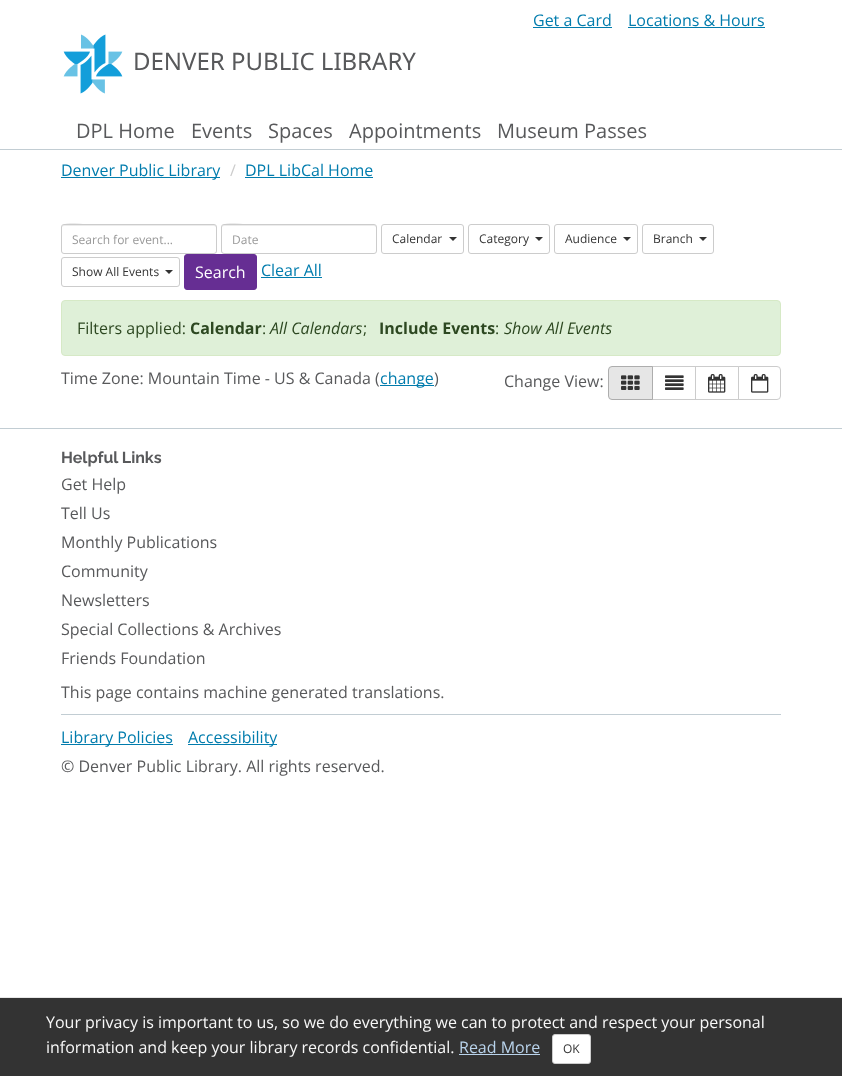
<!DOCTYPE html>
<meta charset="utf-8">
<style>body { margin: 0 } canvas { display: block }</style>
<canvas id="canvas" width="842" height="1076"></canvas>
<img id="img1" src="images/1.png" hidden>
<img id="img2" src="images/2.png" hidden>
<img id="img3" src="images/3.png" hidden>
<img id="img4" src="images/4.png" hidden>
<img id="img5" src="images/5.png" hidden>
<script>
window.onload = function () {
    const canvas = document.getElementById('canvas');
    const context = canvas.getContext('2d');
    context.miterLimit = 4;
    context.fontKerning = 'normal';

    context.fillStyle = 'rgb(255, 255, 255)';
    context.fillRect(0, 0, 842, 1076);
    context.fillStyle = 'rgb(194, 205, 211)';
    context.fillRect(0, 149, 842, 1);
    context.fillStyle = 'rgb(1, 124, 173)';
    context.fillRect(533, 27, 79, 1);
    context.fillRect(628, 27, 137, 1);
    context.drawImage(document.getElementById('img1'), 63, 34, 60, 60);
    context.fillRect(61, 177, 159, 1);
    context.fillRect(245, 177, 128, 1);
    context.fillStyle = 'rgb(236, 236, 236)';
    context.beginPath();
    context.moveTo(64, 226);
    context.lineTo(214, 226);
    context.bezierCurveTo(215, 226, 216, 227, 216, 228);
    context.bezierCurveTo(216, 227, 216, 226, 215, 225);
    context.lineTo(89, 225);
    context.bezierCurveTo(87, 225, 62, 219, 62, 228);
    context.bezierCurveTo(62, 227, 63, 226, 64, 226);
    context.closePath();
    context.fill();
    context.beginPath();
    context.roundRect(61.5, 224.5, 155, 29, 2.5);
    context.strokeStyle = 'rgb(204, 204, 204)';
    context.stroke();
    context.beginPath();
    context.moveTo(224, 226);
    context.lineTo(374, 226);
    context.bezierCurveTo(375, 226, 376, 227, 376, 228);
    context.bezierCurveTo(376, 227, 376, 226, 375, 225);
    context.lineTo(249, 225);
    context.bezierCurveTo(247, 225, 222, 219, 222, 228);
    context.bezierCurveTo(222, 227, 223, 226, 224, 226);
    context.closePath();
    context.fill();
    context.beginPath();
    context.roundRect(221.5, 224.5, 155, 29, 2.5);
    context.stroke();
    context.beginPath();
    context.roundRect(381.5, 224.5, 82, 29, 2.5);
    context.stroke();
    context.fillStyle = 'rgb(51, 51, 51)';
    context.beginPath();
    context.moveTo(449, 237);
    context.lineTo(457, 237);
    context.lineTo(453, 241);
    context.closePath();
    context.fill();
    context.beginPath();
    context.roundRect(468.5, 224.5, 81, 29, 2.5);
    context.stroke();
    context.beginPath();
    context.moveTo(535, 237);
    context.lineTo(543, 237);
    context.lineTo(539, 241);
    context.closePath();
    context.fill();
    context.beginPath();
    context.roundRect(554.5, 224.5, 83, 29, 2.5);
    context.stroke();
    context.beginPath();
    context.moveTo(623, 237);
    context.lineTo(631, 237);
    context.lineTo(627, 241);
    context.closePath();
    context.fill();
    context.beginPath();
    context.roundRect(642.5, 224.5, 71, 29, 2.5);
    context.stroke();
    context.beginPath();
    context.moveTo(699, 237);
    context.lineTo(707, 237);
    context.lineTo(703, 241);
    context.closePath();
    context.fill();
    context.beginPath();
    context.roundRect(61.5, 257.5, 118, 29, 2.5);
    context.stroke();
    context.beginPath();
    context.moveTo(165, 270);
    context.lineTo(173, 270);
    context.lineTo(169, 274);
    context.closePath();
    context.fill();
    context.fillStyle = 'rgb(102, 46, 147)';
    context.beginPath();
    context.roundRect(184.5, 254.5, 72, 35, 2.5);
    context.fill();
    context.strokeStyle = 'rgb(102, 46, 147)';
    context.stroke();
    context.fillStyle = 'rgb(1, 124, 173)';
    context.fillRect(261, 277, 61, 1);
    context.fillStyle = 'rgb(223, 240, 216)';
    context.beginPath();
    context.roundRect(61.5, 300.5, 719, 55, 3.5);
    context.fill();
    context.strokeStyle = 'rgb(214, 233, 198)';
    context.stroke();
    context.fillStyle = 'rgb(1, 124, 173)';
    context.fillRect(380, 385, 54, 1);
    context.strokeStyle = 'rgb(204, 204, 204)';
    context.strokeRect(652.5, 366.5, 43, 33);
    context.fillStyle = 'rgb(230, 230, 230)';
    context.beginPath();
    context.roundRect(608.5, 366.5, 44, 33, [3.5, 0, 0, 3.5]);
    context.fill();
    context.strokeStyle = 'rgb(173, 173, 173)';
    context.stroke();
    context.drawImage(document.getElementById('img2'), 621, 375, 19, 15);
    context.drawImage(document.getElementById('img3'), 665, 375, 19, 15);
    context.strokeStyle = 'rgb(204, 204, 204)';
    context.strokeRect(695.5, 366.5, 43, 33);
    context.drawImage(document.getElementById('img4'), 708, 374, 18, 19);
    context.fillStyle = 'rgb(255, 255, 255)';
    context.beginPath();
    context.roundRect(738.5, 366.5, 42, 33, [0, 3.5, 3.5, 0]);
    context.fill();
    context.stroke();
    context.drawImage(document.getElementById('img5'), 751, 374, 18, 19);
    context.fillStyle = 'rgb(194, 205, 211)';
    context.fillRect(0, 428, 842, 1);
    context.fillRect(61, 714, 720, 1);
    context.fillStyle = 'rgb(1, 124, 173)';
    context.fillRect(61, 744, 112, 1);
    context.fillRect(188, 744, 89, 1);
    context.fillStyle = 'rgb(51, 51, 51)';
    context.fillRect(0, 998, 842, 78);
    context.fillStyle = 'rgb(231, 231, 231)';
    context.fillRect(0, 997, 842, 1);
    context.fillStyle = 'rgb(185, 211, 235)';
    context.fillRect(459, 1054, 81, 1);
    context.fillStyle = 'rgb(255, 255, 255)';
    context.beginPath();
    context.roundRect(552.5, 1034.5, 38, 29, 2.5);
    context.fill();
    context.stroke();
    context.font = '16px Open Sans';
    context.fillStyle = 'rgb(1, 124, 173)';
    context.fillText('Get a Card', 533, 26);
    context.fillText('Locations & Hours', 628, 26);
    context.font = '24px Noto Sans';
    context.fillStyle = 'rgb(88, 89, 91)';
    context.fillText('DENVER PUBLIC LIBRARY', 133, 70);
    context.font = '20px Open Sans';
    context.fillText('DPL Home', 76, 138);
    context.fillText('Events', 191, 138);
    context.fillText('Spaces', 268, 138);
    context.fillText('Appointments', 349, 138);
    context.fillText('Museum Passes', 497, 138);
    context.font = '16px Open Sans';
    context.fillStyle = 'rgb(1, 124, 173)';
    context.fillText('Denver Public Library', 61, 176);
    context.fillStyle = 'rgb(204, 204, 204)';
    context.fillText('/', 230, 176);
    context.fillStyle = 'rgb(1, 124, 173)';
    context.fillText('DPL LibCal Home', 245, 176);
    context.font = '12px Open Sans';
    context.fillStyle = 'rgb(153, 153, 153)';
    context.fillText('Search for event...', 72, 244);
    context.fillText('Date', 232, 244);
    context.fillStyle = 'rgb(51, 51, 51)';
    context.fillText('Calendar', 392, 243);
    context.fillText('Category', 479, 243);
    context.fillText('Audience', 565, 243);
    context.fillText('Branch', 653, 243);
    context.fillText('Show All Events', 72, 276);
    context.font = '16px Open Sans';
    context.fillStyle = 'rgb(255, 255, 255)';
    context.fillText('Search', 195, 278);
    context.fillStyle = 'rgb(1, 124, 173)';
    context.fillText('Clear All', 261, 276);
    context.fillStyle = 'rgb(45, 72, 33)';
    context.fillText('Filters applied:', 77, 334);
    context.font = 'bold 16px Open Sans';
    context.fillText('Calendar', 190, 334);
    context.font = '16px Open Sans';
    context.fillText(':', 262, 334);
    context.font = 'italic 16px Open Sans';
    context.fillText('All Calendars', 270, 334);
    context.font = '16px Open Sans';
    context.fillText(';', 363, 334);
    context.font = 'bold 16px Open Sans';
    context.fillText('Include Events', 379, 334);
    context.font = '16px Open Sans';
    context.fillText(':', 495, 334);
    context.font = 'italic 16px Open Sans';
    context.fillText('Show All Events', 504, 334);
    context.font = '16px Open Sans';
    context.fillStyle = 'rgb(88, 89, 91)';
    context.fillText('Time Zone: Mountain Time - US & Canada (', 61, 384);
    context.fillStyle = 'rgb(1, 124, 173)';
    context.fillText('change', 380, 384);
    context.fillStyle = 'rgb(88, 89, 91)';
    context.fillText(')', 434, 384);
    context.fillText('Change View:', 504, 387);
    context.font = 'bold 16px Raleway';
    context.fillText('Helpful Links', 61, 463);
    context.font = '16px Open Sans';
    context.fillText('Get Help', 61, 490);
    context.fillText('Tell Us', 61, 519);
    context.fillText('Monthly Publications', 61, 548);
    context.fillText('Community', 61, 577);
    context.fillText('Newsletters', 61, 606);
    context.fillText('Special Collections & Archives', 61, 635);
    context.fillText('Friends Foundation', 61, 664);
    context.fillText('This page contains machine generated translations.', 61, 698);
    context.fillStyle = 'rgb(1, 124, 173)';
    context.fillText('Library Policies', 61, 743);
    context.fillText('Accessibility', 188, 743);
    context.fillStyle = 'rgb(88, 89, 91)';
    context.fillText('© Denver Public Library. All rights reserved.', 61, 772);
    context.fillStyle = 'rgb(248, 248, 248)';
    context.fillText('Your privacy is important to us, so we do everything we can to protect and respect your personal', 46, 1028);
    context.fillText('information and keep your library records confidential.', 46, 1053);
    context.fillStyle = 'rgb(185, 211, 235)';
    context.fillText('Read More', 459, 1053);
    context.font = '12px Open Sans';
    context.fillStyle = 'rgb(51, 51, 51)';
    context.fillText('OK', 563, 1053);
};
</script>
